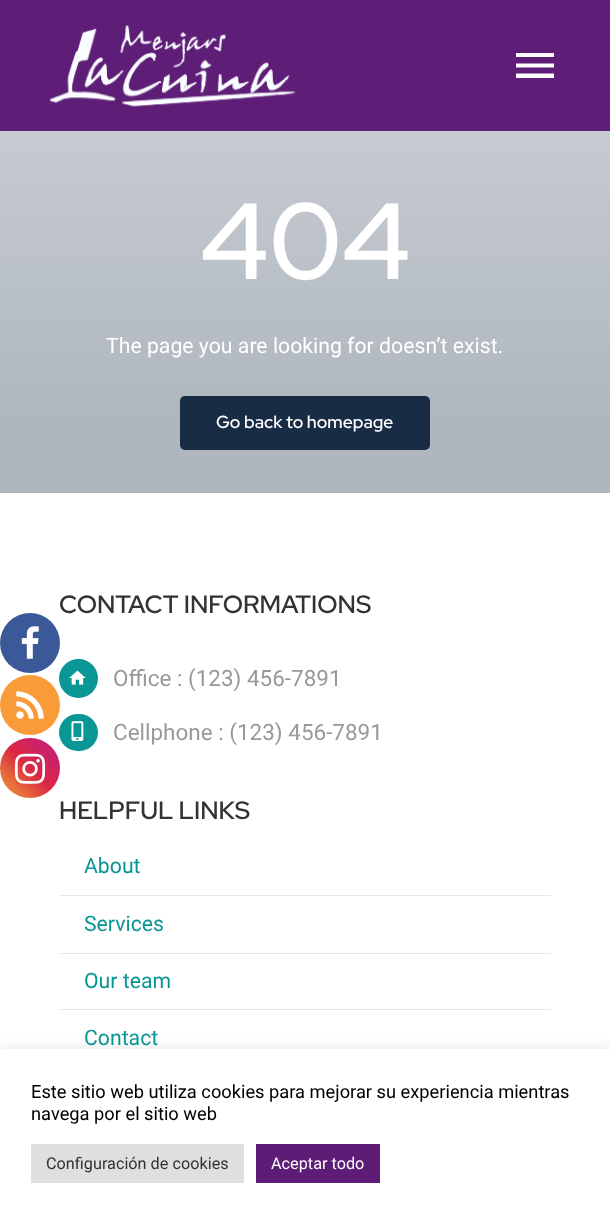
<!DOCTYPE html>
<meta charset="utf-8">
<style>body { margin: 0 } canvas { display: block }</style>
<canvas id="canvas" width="610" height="1220"></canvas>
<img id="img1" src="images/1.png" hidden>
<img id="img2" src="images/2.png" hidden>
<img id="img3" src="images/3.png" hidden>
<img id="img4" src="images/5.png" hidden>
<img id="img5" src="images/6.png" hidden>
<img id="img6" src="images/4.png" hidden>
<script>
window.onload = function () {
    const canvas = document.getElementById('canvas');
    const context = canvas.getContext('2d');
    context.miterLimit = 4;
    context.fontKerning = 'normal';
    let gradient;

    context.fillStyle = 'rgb(255, 255, 255)';
    context.fillRect(0, 0, 610, 1220);
    context.fillStyle = 'rgb(94, 29, 119)';
    context.fillRect(0, 0, 610, 131);
    context.drawImage(document.getElementById('img1'), 50, 25, 245, 82);
    context.fillStyle = 'rgb(255, 255, 255)';
    context.beginPath();
    context.moveTo(516, 53);
    context.lineTo(554, 53);
    context.lineTo(554, 57);
    context.lineTo(516, 57);
    context.closePath();
    context.moveTo(516, 67.5);
    context.lineTo(516, 63.5);
    context.lineTo(554, 63.5);
    context.lineTo(554, 67.5);
    context.closePath();
    context.moveTo(516, 78);
    context.lineTo(516, 73.5);
    context.lineTo(554, 73.5);
    context.lineTo(554, 78);
    context.closePath();
    context.fill();
    gradient = context.createLinearGradient(305, 131, 305, 493);
    gradient.addColorStop(0, 'rgb(198, 203, 209)');
    gradient.addColorStop(0.8, 'rgb(175, 182, 190)');
    context.fillStyle = gradient;
    context.fillRect(0, 131, 610, 362);
    context.fillStyle = 'rgb(24, 44, 69)';
    context.beginPath();
    context.roundRect(180, 396, 250, 54, 5);
    context.fill();
    context.fillStyle = 'rgb(10, 150, 149)';
    context.beginPath();
    context.arc(78.5, 678.5, 19.5, 0, 2 * Math.PI);
    context.fill();
    context.drawImage(document.getElementById('img2'), 69, 670, 17, 15);
    context.beginPath();
    context.roundRect(59, 714, 39, 37, 18.5);
    context.fill();
    context.drawImage(document.getElementById('img3'), 71, 721, 13, 20);
    context.fillStyle = 'rgb(232, 232, 232)';
    context.fillRect(59, 895, 492, 1);
    context.fillRect(59, 953, 492, 1);
    context.fillRect(59, 1009, 492, 1);
    context.fillStyle = 'rgb(250, 155, 57)';
    context.beginPath();
    context.arc(30, 705, 30, 0, 2 * Math.PI);
    context.fill();
    context.drawImage(document.getElementById('img4'), 16, 691, 28, 28);
    gradient = context.createLinearGradient(0, 798, 60, 738);
    gradient.addColorStop(0, 'rgb(240, 148, 51)');
    gradient.addColorStop(0.25, 'rgb(230, 104, 60)');
    gradient.addColorStop(0.5, 'rgb(220, 39, 67)');
    gradient.addColorStop(0.75, 'rgb(204, 35, 102)');
    gradient.addColorStop(1, 'rgb(188, 24, 136)');
    context.fillStyle = gradient;
    context.beginPath();
    context.arc(30, 768, 30, 0, 2 * Math.PI);
    context.fill();
    context.drawImage(document.getElementById('img5'), 15, 753, 30, 31);
    context.fillStyle = 'rgba(172, 171, 171, 0.3)';
    context.filter = 'blur(6px)';
    context.beginPath();
    context.rect(0, 1048, 610, 171);
    context.fill();
    context.filter = 'none';
    context.fillStyle = 'rgb(255, 255, 255)';
    context.fillRect(0, 1049, 610, 171);
    context.fillStyle = 'rgb(222, 223, 224)';
    context.fillRect(31, 1144, 213, 39);
    context.fillStyle = 'rgb(93, 28, 118)';
    context.fillRect(256, 1144, 124, 39);
    context.font = '500 108px Red Hat Display';
    context.fillStyle = 'rgb(255, 255, 255)';
    context.fillText('404', 200, 279);
    context.font = '21.25px Roboto';
    context.fillText('The page you are looking for doesn’t exist.', 106, 353);
    context.font = '500 17.5px Red Hat Display';
    context.fillText('Go back to homepage', 216, 428);
    context.font = '500 25px Red Hat Display';
    context.fillStyle = 'rgb(51, 51, 51)';
    context.fillText('CONTACT INFORMATIONS', 59, 613);
    context.font = '22.5px Roboto';
    context.fillStyle = 'rgb(153, 153, 153)';
    context.fillText('Office : (123) 456-7891', 113, 686);
    context.fillText('Cellphone : (123) 456-7891', 113, 740);
    context.font = '500 25px Red Hat Display';
    context.fillStyle = 'rgb(51, 51, 51)';
    context.fillText('HELPFUL LINKS', 59, 819);
    context.font = '21.25px Roboto';
    context.fillStyle = 'rgb(10, 150, 149)';
    context.fillText('About', 84, 873);
    context.fillText('Services', 84, 931);
    context.fillText('Our team', 84, 988);
    context.fillText('Contact', 84, 1045);
    context.fillStyle = 'rgb(59, 89, 152)';
    context.beginPath();
    context.arc(30, 643, 30, 0, 2 * Math.PI);
    context.fill();
    context.drawImage(document.getElementById('img6'), 21, 626, 18, 33);
    context.font = '18.3px Roboto';
    context.fillStyle = 'rgb(0, 0, 0)';
    context.fillText('Este sitio web utiliza cookies para mejorar su experiencia mientras', 31, 1098);
    context.fillText('navega por el sitio web', 31, 1120);
    context.font = '16.25px Roboto';
    context.fillStyle = 'rgb(51, 51, 51)';
    context.fillText('Configuración de cookies', 46, 1169);
    context.fillStyle = 'rgb(255, 255, 255)';
    context.fillText('Aceptar todo', 271, 1169);
};
</script>
